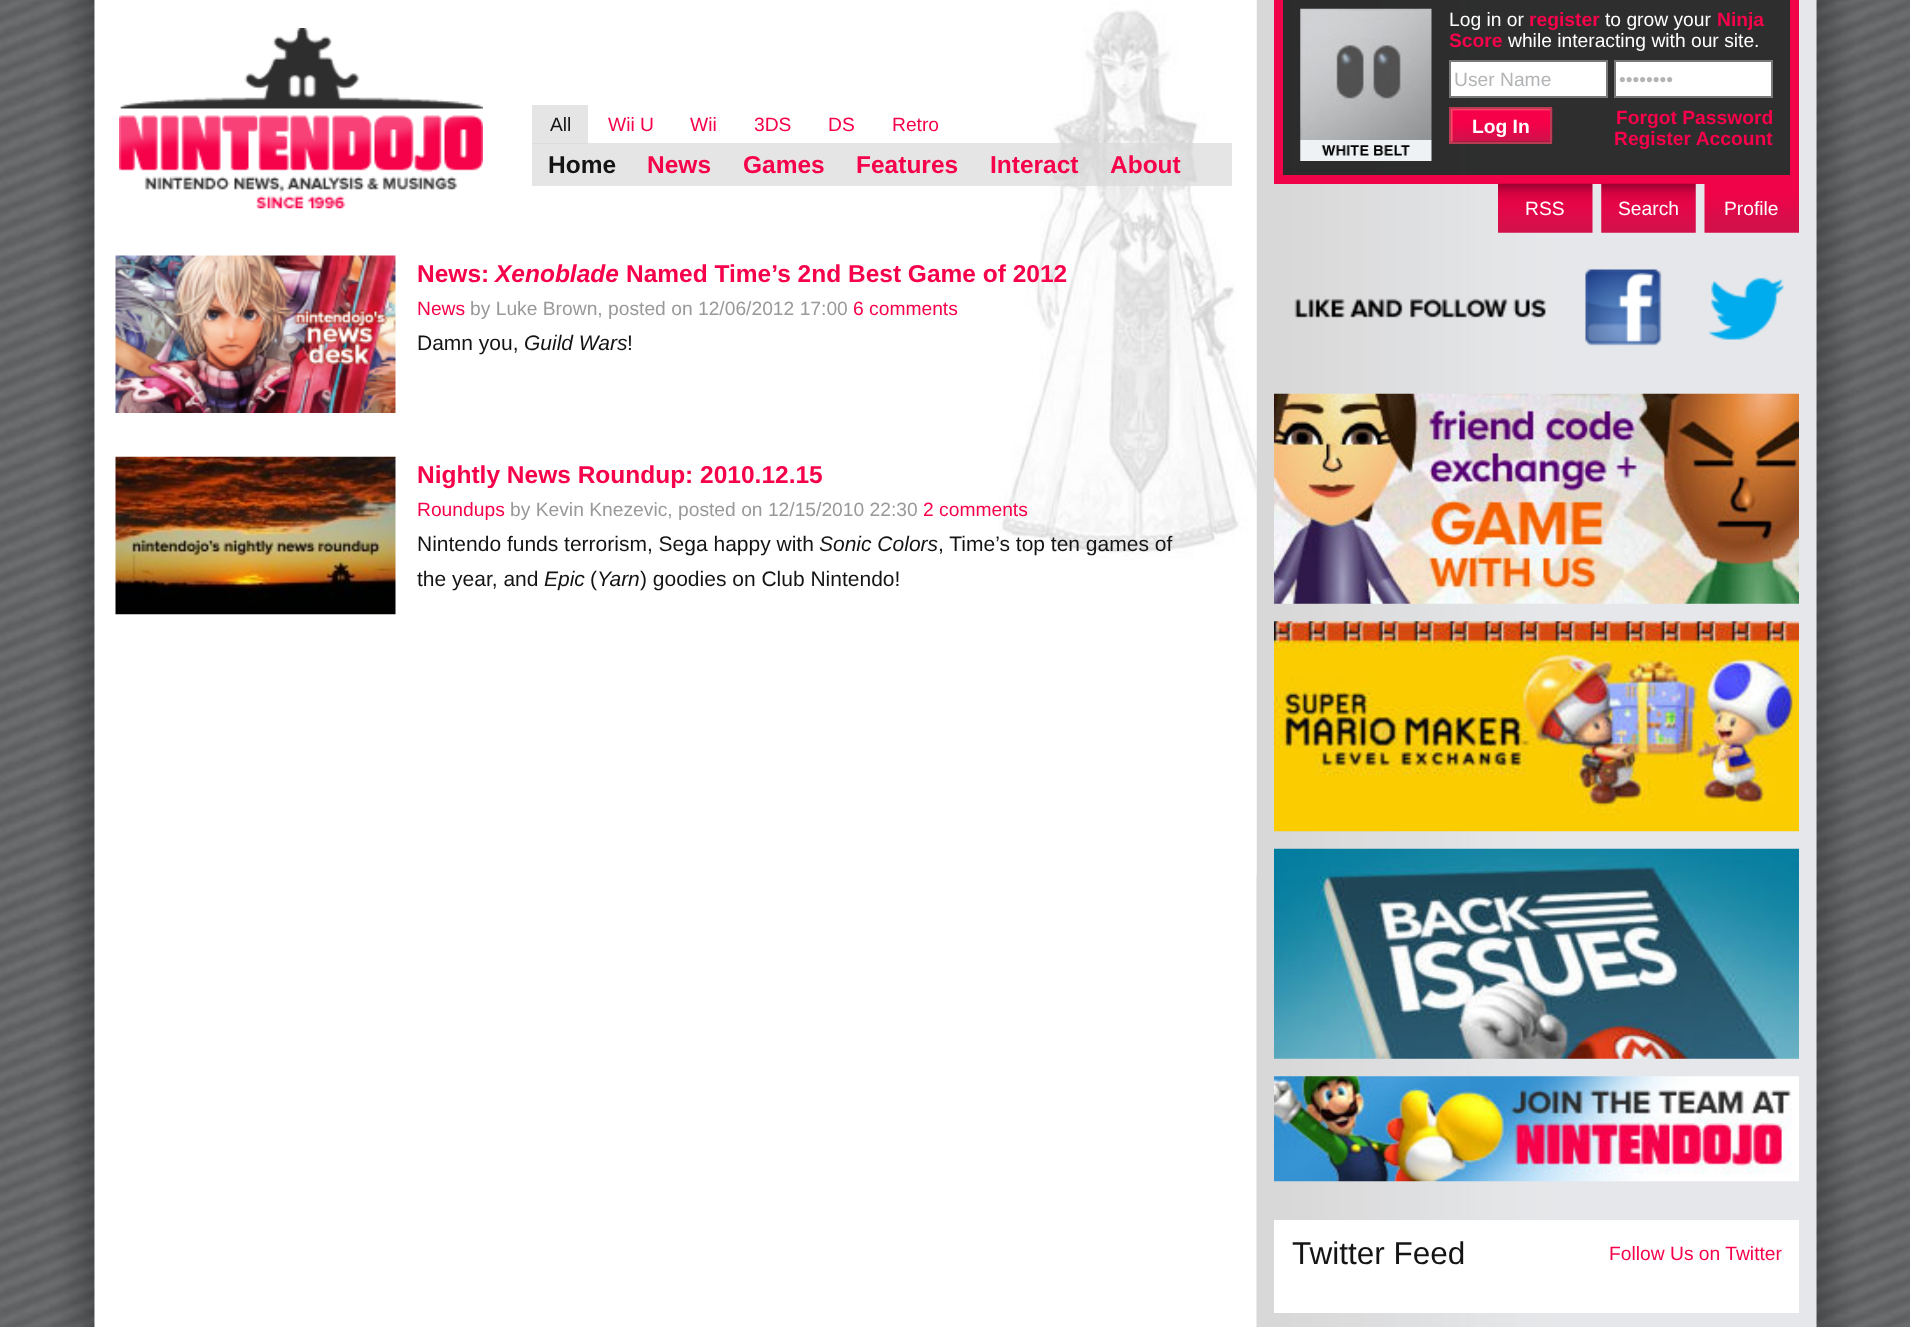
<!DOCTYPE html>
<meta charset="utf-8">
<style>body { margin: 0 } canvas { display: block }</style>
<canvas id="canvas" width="1910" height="1327"></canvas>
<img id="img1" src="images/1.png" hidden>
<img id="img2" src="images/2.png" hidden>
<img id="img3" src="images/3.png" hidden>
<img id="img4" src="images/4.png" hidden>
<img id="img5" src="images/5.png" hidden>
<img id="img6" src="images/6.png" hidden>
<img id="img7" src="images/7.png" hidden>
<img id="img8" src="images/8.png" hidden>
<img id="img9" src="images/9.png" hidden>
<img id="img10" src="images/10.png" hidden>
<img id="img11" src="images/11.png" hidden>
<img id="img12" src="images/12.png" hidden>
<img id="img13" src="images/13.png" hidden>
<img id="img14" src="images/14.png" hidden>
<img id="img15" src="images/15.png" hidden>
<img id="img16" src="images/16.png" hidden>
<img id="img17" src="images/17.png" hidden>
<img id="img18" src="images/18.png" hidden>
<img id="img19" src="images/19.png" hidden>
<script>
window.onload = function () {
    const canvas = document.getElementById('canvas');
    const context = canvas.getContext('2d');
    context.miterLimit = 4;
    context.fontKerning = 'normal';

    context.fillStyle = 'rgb(255, 255, 255)';
    context.fillRect(0, 0, 1910, 1327);
    context.drawImage(document.getElementById('img1'), 0, 0, 1910, 1327);
    context.drawImage(document.getElementById('img2'), 94, 0, 1723, 1327);
    context.drawImage(document.getElementById('img3'), 119, 28, 364, 181);
    context.drawImage(document.getElementById('img4'), 998, 0, 259, 875);
    context.fillStyle = 'rgb(229, 229, 229)';
    context.fillRect(532, 105, 56, 39);
    context.fillStyle = 'rgba(217, 217, 217, 0.68)';
    context.fillRect(532, 143, 700, 43);
    context.drawImage(document.getElementById('img5'), 115, 255, 281, 158);
    context.drawImage(document.getElementById('img6'), 115, 456, 281, 159);
    context.fillStyle = 'rgba(0, 0, 0, 0.8)';
    context.fillRect(1283, 0, 507, 175);
    context.fillStyle = 'rgb(241, 3, 73)';
    context.fillRect(1790, 0, 9, 175);
    context.fillRect(1283, 175, 516, 9);
    context.fillRect(1274, 0, 9, 184);
    context.drawImage(document.getElementById('img7'), 1300, 8, 132, 132);
    context.drawImage(document.getElementById('img8'), 1300, 140, 132, 21);
    context.fillStyle = 'rgb(255, 255, 255)';
    context.beginPath();
    context.rect(1450, 61, 157, 36);
    context.fill();
    context.strokeStyle = 'rgb(121, 121, 121)';
    context.lineWidth = 2;
    context.stroke();
    context.beginPath();
    context.rect(1615, 61, 157, 36);
    context.fill();
    context.stroke();
    context.drawImage(document.getElementById('img9'), 1451, 108, 102, 34);
    context.strokeStyle = 'rgb(187, 58, 84)';
    context.strokeRect(1450, 108, 101, 35);
    context.drawImage(document.getElementById('img10'), 1498, 183, 95, 50);
    context.drawImage(document.getElementById('img11'), 1601, 183, 95, 50);
    context.drawImage(document.getElementById('img12'), 1704, 184, 95, 49);
    context.drawImage(document.getElementById('img13'), 1294, 298, 252, 20);
    context.drawImage(document.getElementById('img14'), 1585, 269, 77, 77);
    context.drawImage(document.getElementById('img15'), 1708, 277, 76, 63);
    context.drawImage(document.getElementById('img16'), 1274, 393, 525, 211);
    context.drawImage(document.getElementById('img17'), 1274, 621, 525, 211);
    context.drawImage(document.getElementById('img18'), 1274, 848, 525, 211);
    context.drawImage(document.getElementById('img19'), 1274, 1076, 525, 106);
    context.fillRect(1274, 1220, 525, 93);
    context.font = '19.25px Liberation Sans';
    context.fillStyle = 'rgb(20, 20, 20)';
    context.fillText('All', 550, 131);
    context.fillStyle = 'rgb(246, 2, 74)';
    context.fillText('Wii U', 608, 131);
    context.fillText('Wii', 690, 131);
    context.fillText('3DS', 754, 131);
    context.fillText('DS', 828, 131);
    context.fillText('Retro', 892, 131);
    context.font = 'bold 24.5px Liberation Sans';
    context.fillStyle = 'rgb(20, 20, 20)';
    context.fillText('Home', 548, 173);
    context.fillStyle = 'rgb(246, 2, 74)';
    context.fillText('News', 647, 173);
    context.fillText('Games', 743, 173);
    context.fillText('Features', 856, 173);
    context.fillText('Interact', 990, 173);
    context.fillText('About', 1110, 173);
    context.fillText('News:', 417, 282);
    context.font = 'italic bold 24.5px Liberation Sans';
    context.fillText('Xenoblade', 495, 282);
    context.font = 'bold 24.5px Liberation Sans';
    context.fillText('Named Time’s 2nd Best Game of 2012', 626, 282);
    context.font = '19.25px Liberation Sans';
    context.fillText('News', 417, 315);
    context.fillStyle = 'rgb(153, 153, 153)';
    context.fillText('by Luke Brown, posted on 12/06/2012 17:00', 470, 315);
    context.fillStyle = 'rgb(246, 2, 74)';
    context.fillText('6 comments', 853, 315);
    context.font = '21px Liberation Sans';
    context.fillStyle = 'rgb(20, 20, 20)';
    context.fillText('Damn you,', 417, 350);
    context.font = 'italic 21px Liberation Sans';
    context.fillText('Guild Wars', 524, 350);
    context.font = '21px Liberation Sans';
    context.fillText('!', 627, 350);
    context.font = 'bold 24.5px Liberation Sans';
    context.fillStyle = 'rgb(246, 2, 74)';
    context.fillText('Nightly News Roundup: 2010.12.15', 417, 483);
    context.font = '19.25px Liberation Sans';
    context.fillText('Roundups', 417, 516);
    context.fillStyle = 'rgb(153, 153, 153)';
    context.fillText('by Kevin Knezevic, posted on 12/15/2010 22:30', 510, 516);
    context.fillStyle = 'rgb(246, 2, 74)';
    context.fillText('2 comments', 923, 516);
    context.font = '21px Liberation Sans';
    context.fillStyle = 'rgb(20, 20, 20)';
    context.fillText('Nintendo funds terrorism, Sega happy with', 417, 551);
    context.font = 'italic 21px Liberation Sans';
    context.fillText('Sonic Colors', 819, 551);
    context.font = '21px Liberation Sans';
    context.fillText(', Time’s top ten games of', 938, 551);
    context.fillText('the year, and', 417, 586);
    context.font = 'italic 21px Liberation Sans';
    context.fillText('Epic', 544, 586);
    context.font = '21px Liberation Sans';
    context.fillText('(', 590, 586);
    context.font = 'italic 21px Liberation Sans';
    context.fillText('Yarn', 597, 586);
    context.font = '21px Liberation Sans';
    context.fillText(') goodies on Club Nintendo!', 640, 586);
    context.font = '19.25px Liberation Sans';
    context.fillStyle = 'rgb(255, 255, 255)';
    context.fillText('Log in or', 1449, 26);
    context.font = 'bold 19.25px Liberation Sans';
    context.fillStyle = 'rgb(246, 2, 74)';
    context.fillText('register', 1529, 26);
    context.font = '19.25px Liberation Sans';
    context.fillStyle = 'rgb(255, 255, 255)';
    context.fillText('to grow your', 1605, 26);
    context.font = 'bold 19.25px Liberation Sans';
    context.fillStyle = 'rgb(246, 2, 74)';
    context.fillText('Ninja', 1717, 26);
    context.fillText('Score', 1449, 47);
    context.font = '19.25px Liberation Sans';
    context.fillStyle = 'rgb(255, 255, 255)';
    context.fillText('while interacting with our site.', 1508, 47);
    context.fillStyle = 'rgb(178, 180, 182)';
    context.fillText('User Name', 1454, 86);
    context.fillText('••••••••', 1619, 86);
    context.font = 'bold 19.25px Liberation Sans';
    context.fillStyle = 'rgb(255, 255, 255)';
    context.fillText('Log In', 1472, 133);
    context.fillStyle = 'rgb(246, 2, 74)';
    context.fillText('Forgot Password', 1616, 124);
    context.fillText('Register Account', 1614, 145);
    context.font = '19.25px Liberation Sans';
    context.fillStyle = 'rgb(255, 255, 255)';
    context.fillText('RSS', 1525, 215);
    context.fillText('Search', 1618, 215);
    context.fillText('Profile', 1724, 215);
    context.font = '31.5px Liberation Sans';
    context.fillStyle = 'rgb(20, 20, 20)';
    context.fillText('Twitter Feed', 1292, 1264);
    context.font = '19.25px Liberation Sans';
    context.fillStyle = 'rgb(246, 2, 74)';
    context.fillText('Follow Us on Twitter', 1609, 1260);
};
</script>
